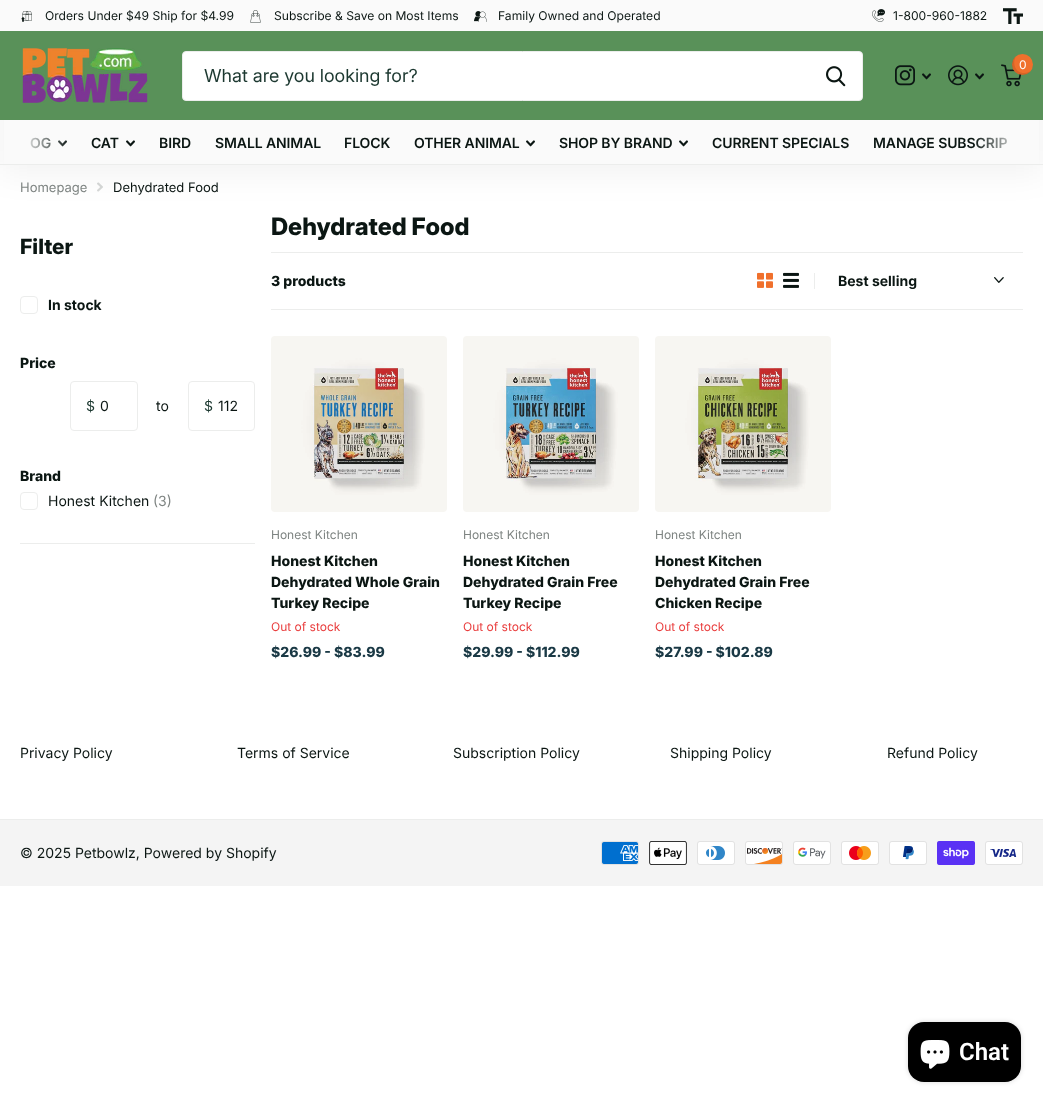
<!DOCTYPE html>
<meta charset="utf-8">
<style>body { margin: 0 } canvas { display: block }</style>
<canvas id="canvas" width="1043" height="1103"></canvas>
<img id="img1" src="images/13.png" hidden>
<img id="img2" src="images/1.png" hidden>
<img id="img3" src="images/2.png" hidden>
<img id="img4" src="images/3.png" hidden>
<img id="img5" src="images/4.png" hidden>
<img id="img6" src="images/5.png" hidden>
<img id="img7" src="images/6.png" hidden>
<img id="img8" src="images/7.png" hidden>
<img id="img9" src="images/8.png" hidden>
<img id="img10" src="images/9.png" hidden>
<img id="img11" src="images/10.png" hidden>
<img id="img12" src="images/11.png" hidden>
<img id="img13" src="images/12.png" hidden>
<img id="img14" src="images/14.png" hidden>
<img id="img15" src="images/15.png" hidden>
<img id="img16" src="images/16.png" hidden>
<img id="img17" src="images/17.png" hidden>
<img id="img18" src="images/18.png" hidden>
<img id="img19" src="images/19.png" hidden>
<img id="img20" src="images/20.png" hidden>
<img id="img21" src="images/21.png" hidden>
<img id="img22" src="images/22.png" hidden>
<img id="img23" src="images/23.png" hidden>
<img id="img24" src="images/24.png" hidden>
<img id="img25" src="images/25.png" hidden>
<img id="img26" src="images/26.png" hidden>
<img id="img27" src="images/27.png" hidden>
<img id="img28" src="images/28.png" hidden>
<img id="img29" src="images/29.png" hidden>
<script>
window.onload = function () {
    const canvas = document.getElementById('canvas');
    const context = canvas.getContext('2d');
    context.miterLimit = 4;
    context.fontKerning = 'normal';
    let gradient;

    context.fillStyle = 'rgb(255, 255, 255)';
    context.fillRect(0, 0, 1043, 1103);
    context.drawImage(document.getElementById('img1'), 97, 182, 6, 10);
    context.fillStyle = 'rgba(0, 0, 0, 0.05)';
    context.filter = 'blur(16px)';
    context.beginPath();
    context.rect(0, 9, 1043, 165);
    context.fill();
    context.filter = 'none';
    context.fillStyle = 'rgb(89, 145, 89)';
    context.fillRect(0, 31, 1043, 89);
    context.fillStyle = 'rgb(236, 237, 236)';
    context.fillRect(0, 164, 1043, 1);
    context.fillStyle = 'rgb(250, 250, 250)';
    context.fillRect(0, 0, 1043, 31);
    context.drawImage(document.getElementById('img2'), 21, 11, 11, 11);
    context.drawImage(document.getElementById('img3'), 250, 10, 11, 13);
    context.drawImage(document.getElementById('img4'), 474, 11, 13, 11);
    context.drawImage(document.getElementById('img5'), 872, 9, 13, 13);
    context.drawImage(document.getElementById('img6'), 1003, 8, 20, 16);
    context.drawImage(document.getElementById('img7'), 22, 48, 126, 55);
    context.drawImage(document.getElementById('img8'), 895, 65, 20, 21);
    context.drawImage(document.getElementById('img9'), 922, 73, 9, 7);
    context.drawImage(document.getElementById('img10'), 948, 65, 20, 21);
    context.drawImage(document.getElementById('img9'), 975, 73, 9, 7);
    context.drawImage(document.getElementById('img11'), 1001, 64, 21, 23);
    context.fillStyle = 'rgb(240, 112, 44)';
    context.beginPath();
    context.arc(1022.5, 64.5, 10.5, 0, 2 * Math.PI);
    context.fill();
    context.fillStyle = 'rgba(0, 0, 0, 0.1)';
    context.beginPath();
    context.moveTo(1031, 70.5);
    context.bezierCurveTo(1029.5, 72, 1027, 73, 1024, 73);
    context.bezierCurveTo(1015, 73, 1012, 62.5, 1016, 56.5);
    context.bezierCurveTo(1011, 60, 1010.5, 67.5, 1015, 72);
    context.bezierCurveTo(1019.5, 76.5, 1027.5, 76, 1031, 70.5);
    context.closePath();
    context.fill();
    context.fillStyle = 'rgb(255, 255, 255)';
    context.beginPath();
    context.roundRect(182.5, 51.5, 680, 49, 3.5);
    context.fill();
    context.strokeStyle = 'rgb(236, 237, 236)';
    context.stroke();
    context.drawImage(document.getElementById('img12'), 826, 66, 20, 21);
    context.fillStyle = 'rgb(250, 250, 250)';
    context.fillRect(4, 120, 1035, 44);
    context.drawImage(document.getElementById('img13'), 58, 140, 9, 7);
    context.drawImage(document.getElementById('img13'), 126, 140, 9, 7);
    context.drawImage(document.getElementById('img13'), 526, 140, 9, 7);
    context.drawImage(document.getElementById('img13'), 679, 140, 9, 7);
    context.fillStyle = 'rgb(236, 237, 236)';
    context.fillRect(20, 543, 235, 1);
    context.beginPath();
    context.roundRect(20.5, 296.5, 17, 17, 3.5);
    context.stroke();
    context.beginPath();
    context.roundRect(70.5, 381.5, 67, 49, 3.5);
    context.stroke();
    context.beginPath();
    context.roundRect(188.5, 381.5, 66, 49, 3.5);
    context.stroke();
    context.beginPath();
    context.roundRect(20.5, 492.5, 17, 17, 3.5);
    context.stroke();
    context.fillRect(271, 252, 752, 1);
    context.fillRect(271, 309, 752, 1);
    context.drawImage(document.getElementById('img14'), 757, 272, 16, 16);
    context.drawImage(document.getElementById('img15'), 783, 272, 16, 16);
    context.fillRect(814, 273, 1, 16);
    context.drawImage(document.getElementById('img16'), 994, 277, 10, 6);
    context.drawImage(document.getElementById('img17'), 271, 336, 176, 176);
    context.drawImage(document.getElementById('img18'), 463, 336, 176, 176);
    context.drawImage(document.getElementById('img19'), 655, 336, 176, 176);
    context.fillStyle = 'rgb(244, 244, 244)';
    context.fillRect(0, 820, 1043, 66);
    context.fillStyle = 'rgb(236, 237, 236)';
    context.fillRect(0, 819, 1043, 1);
    context.drawImage(document.getElementById('img20'), 601, 841, 38, 24);
    context.drawImage(document.getElementById('img21'), 649, 841, 38, 24);
    context.drawImage(document.getElementById('img22'), 697, 841, 38, 24);
    context.drawImage(document.getElementById('img23'), 745, 841, 38, 24);
    context.drawImage(document.getElementById('img24'), 793, 841, 38, 24);
    context.drawImage(document.getElementById('img25'), 841, 841, 38, 24);
    context.drawImage(document.getElementById('img26'), 889, 841, 38, 24);
    context.drawImage(document.getElementById('img27'), 937, 841, 38, 24);
    context.drawImage(document.getElementById('img28'), 985, 841, 38, 24);
    context.fillStyle = 'rgba(0, 0, 0, 0.15)';
    context.filter = 'blur(2.5px)';
    context.beginPath();
    context.roundRect(908, 1022, 113, 60, 16);
    context.fill();
    context.filter = 'none';
    context.fillStyle = 'rgb(0, 0, 0)';
    context.beginPath();
    context.roundRect(908, 1022, 113, 60, 16);
    context.fill();
    context.drawImage(document.getElementById('img29'), 920, 1040, 30, 29);
    context.font = '12.1px Inter';
    context.fillStyle = 'rgb(11, 22, 19)';
    context.fillText('Orders Under $49 Ship for $4.99', 45, 20);
    context.fillText('Subscribe & Save on Most Items', 274, 20);
    context.fillText('Family Owned and Operated', 498, 20);
    context.fillText('1-800-960-1882', 893, 20);
    context.font = '12px Inter';
    context.fillStyle = 'rgb(255, 255, 255)';
    context.fillText('0', 1019, 69);
    context.font = '18px "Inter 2"';
    context.fillStyle = 'rgb(28, 56, 48)';
    context.fillText('What are you looking for?', 204, 82);
    context.letterSpacing = '-0.1px';
    context.font = '600 14px Inter';
    context.fillStyle = 'rgb(11, 22, 19)';
    context.fillText('OG', 30, 148);
    gradient = context.createLinearGradient(70, 141, 20, 141);
    gradient.addColorStop(0, 'rgba(250, 250, 250, 0)');
    gradient.addColorStop(1, 'rgb(250, 250, 250)');
    context.fillStyle = gradient;
    context.fillRect(30, 137, 37, 12);
    context.fillStyle = 'rgb(11, 22, 19)';
    context.fillText('CAT', 91, 148);
    context.fillText('BIRD', 159, 148);
    context.fillText('SMALL ANIMAL', 215, 148);
    context.fillText('FLOCK', 344, 148);
    context.fillText('OTHER ANIMAL', 414, 148);
    context.fillText('SHOP BY BRAND', 559, 148);
    context.fillText('CURRENT SPECIALS', 712, 148);
    context.fillText('MANAGE SUBSCRIP', 873, 148);
    gradient = context.createLinearGradient(973, 141, 1023, 141);
    gradient.addColorStop(0, 'rgba(250, 250, 250, 0)');
    gradient.addColorStop(1, 'rgb(250, 250, 250)');
    context.fillStyle = gradient;
    context.fillRect(975, 137, 32, 12);
    context.letterSpacing = '0px';
    context.font = '13px Inter';
    context.fillStyle = 'rgb(126, 132, 130)';
    context.fillText('Homepage', 20, 192);
    context.fillStyle = 'rgb(11, 22, 19)';
    context.fillText('Dehydrated Food', 113, 192);
    context.font = '800 21px "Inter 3"';
    context.fillText('Filter', 20, 254);
    context.font = 'bold 14px Inter';
    context.fillText('In stock', 48, 310);
    context.font = '800 14px "Inter 2"';
    context.fillText('Price', 20, 368);
    context.font = '14px Inter';
    context.fillStyle = 'rgb(28, 56, 48)';
    context.fillText('$', 86, 411);
    context.fillStyle = 'rgb(11, 22, 19)';
    context.fillText('0', 100, 411);
    context.fillText('to', 156, 411);
    context.fillStyle = 'rgb(28, 56, 48)';
    context.fillText('$', 204, 411);
    context.fillStyle = 'rgb(11, 22, 19)';
    context.fillText('112', 218, 411);
    context.font = '800 14px "Inter 2"';
    context.fillText('Brand', 20, 481);
    context.font = '14px Inter';
    context.fillText('Honest Kitchen', 48, 506);
    context.fillStyle = 'rgb(126, 132, 130)';
    context.fillText('(3)', 153, 506);
    context.font = '800 24px Inter';
    context.fillStyle = 'rgb(11, 22, 19)';
    context.fillText('Dehydrated Food', 271, 235);
    context.font = '800 14px "Inter 2"';
    context.fillText('3 products', 271, 286);
    context.font = 'bold 14px Inter';
    context.fillText('Best selling', 838, 286);
    context.font = '12px Inter';
    context.fillStyle = 'rgb(126, 132, 130)';
    context.fillText('Honest Kitchen', 271, 539);
    context.font = '800 14px "Inter 2"';
    context.fillStyle = 'rgb(11, 22, 19)';
    context.fillText('Honest Kitchen', 271, 566);
    context.fillText('Dehydrated Whole Grain', 271, 587);
    context.fillText('Turkey Recipe', 271, 608);
    context.font = '12px Inter';
    context.fillStyle = 'rgb(233, 61, 61)';
    context.fillText('Out of stock', 271, 631);
    context.font = '800 14px "Inter 2"';
    context.fillStyle = 'rgb(26, 57, 69)';
    context.fillText('$26.99 - $83.99', 271, 657);
    context.font = '12px Inter';
    context.fillStyle = 'rgb(126, 132, 130)';
    context.fillText('Honest Kitchen', 463, 539);
    context.font = '800 14px "Inter 2"';
    context.fillStyle = 'rgb(11, 22, 19)';
    context.fillText('Honest Kitchen', 463, 566);
    context.fillText('Dehydrated Grain Free', 463, 587);
    context.fillText('Turkey Recipe', 463, 608);
    context.font = '12px Inter';
    context.fillStyle = 'rgb(233, 61, 61)';
    context.fillText('Out of stock', 463, 631);
    context.font = '800 14px "Inter 2"';
    context.fillStyle = 'rgb(26, 57, 69)';
    context.fillText('$29.99 - $112.99', 463, 657);
    context.font = '12px Inter';
    context.fillStyle = 'rgb(126, 132, 130)';
    context.fillText('Honest Kitchen', 655, 539);
    context.font = '800 14px "Inter 2"';
    context.fillStyle = 'rgb(11, 22, 19)';
    context.fillText('Honest Kitchen', 655, 566);
    context.fillText('Dehydrated Grain Free', 655, 587);
    context.fillText('Chicken Recipe', 655, 608);
    context.font = '12px Inter';
    context.fillStyle = 'rgb(233, 61, 61)';
    context.fillText('Out of stock', 655, 631);
    context.font = '800 14px "Inter 2"';
    context.fillStyle = 'rgb(26, 57, 69)';
    context.fillText('$27.99 - $102.89', 655, 657);
    context.font = '14px Inter';
    context.fillStyle = 'rgb(11, 22, 19)';
    context.fillText('Privacy Policy', 20, 758);
    context.fillText('Terms of Service', 237, 758);
    context.fillText('Subscription Policy', 453, 758);
    context.fillText('Shipping Policy', 670, 758);
    context.fillText('Refund Policy', 887, 758);
    context.fillText('© 2025 Petbowlz, Powered by Shopify', 20, 858);
    context.font = '600 24px Roboto';
    context.fillStyle = 'rgb(255, 255, 255)';
    context.fillText('Chat', 959, 1060);
};
</script>
